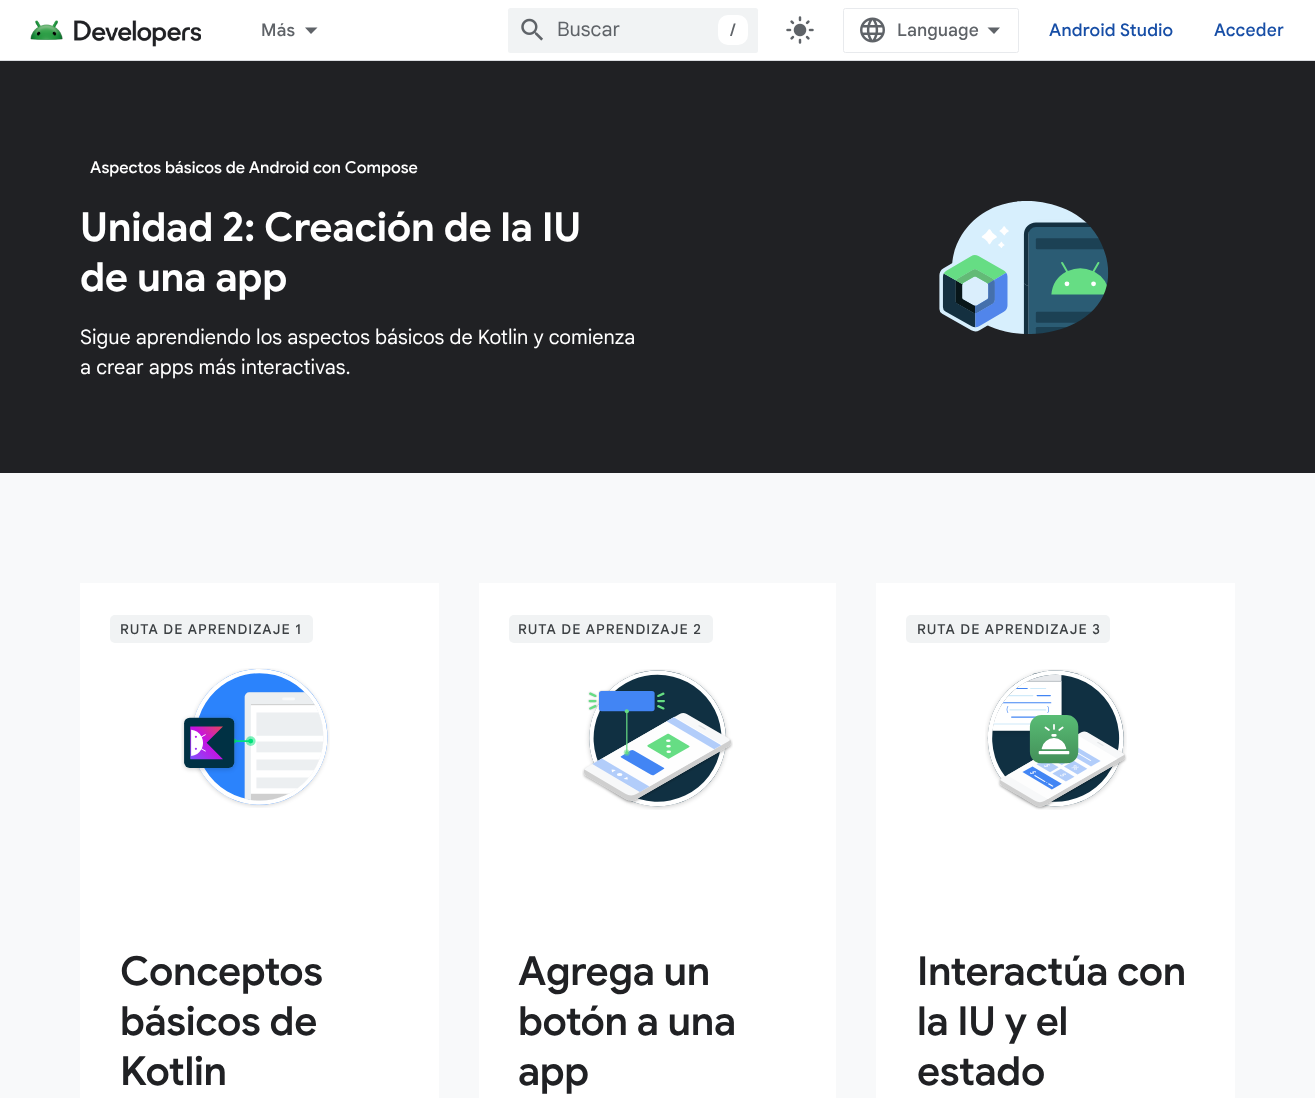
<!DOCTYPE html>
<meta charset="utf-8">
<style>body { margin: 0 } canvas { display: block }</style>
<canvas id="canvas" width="1315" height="1098"></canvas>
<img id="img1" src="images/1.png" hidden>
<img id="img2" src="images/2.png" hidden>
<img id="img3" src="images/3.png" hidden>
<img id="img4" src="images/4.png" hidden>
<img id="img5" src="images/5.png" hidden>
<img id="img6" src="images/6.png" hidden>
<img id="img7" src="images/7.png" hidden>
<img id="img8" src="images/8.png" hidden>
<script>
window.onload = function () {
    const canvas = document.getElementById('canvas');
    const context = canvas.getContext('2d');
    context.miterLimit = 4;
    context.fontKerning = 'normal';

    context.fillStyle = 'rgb(255, 255, 255)';
    context.fillRect(0, 0, 1315, 1098);
    context.fillStyle = 'rgb(218, 220, 224)';
    context.fillRect(0, 60, 1315, 1);
    context.drawImage(document.getElementById('img1'), 30, 20, 171, 27);
    context.fillStyle = 'rgb(95, 99, 104)';
    context.beginPath();
    context.moveTo(305, 27.5);
    context.lineTo(317.5, 27.5);
    context.lineTo(311, 34);
    context.closePath();
    context.fill();
    context.fillStyle = 'rgb(241, 243, 244)';
    context.beginPath();
    context.roundRect(508, 8, 250, 45, 2.5);
    context.fill();
    context.drawImage(document.getElementById('img2'), 521, 18, 22, 23);
    context.fillStyle = 'rgb(255, 255, 255)';
    context.beginPath();
    context.roundRect(718, 15, 30, 30, 10);
    context.fill();
    context.drawImage(document.getElementById('img3'), 786, 16, 28, 28);
    context.beginPath();
    context.roundRect(843.5, 8.5, 175, 44, 2);
    context.strokeStyle = 'rgb(232, 234, 237)';
    context.stroke();
    context.drawImage(document.getElementById('img4'), 860, 17, 25, 26);
    context.fillStyle = 'rgb(95, 99, 104)';
    context.beginPath();
    context.moveTo(994, 34);
    context.lineTo(987.5, 27.5);
    context.lineTo(1000, 27.5);
    context.closePath();
    context.fill();
    context.fillStyle = 'rgb(32, 33, 36)';
    context.fillRect(0, 61, 1315, 412);
    context.drawImage(document.getElementById('img5'), 939, 201, 170, 133);
    context.fillStyle = 'rgb(248, 249, 250)';
    context.fillRect(0, 473, 1315, 625);
    context.fillStyle = 'rgb(255, 255, 255)';
    context.fillRect(80, 583, 359, 515);
    context.fillStyle = 'rgb(241, 243, 244)';
    context.beginPath();
    context.roundRect(110, 615, 203, 28, 5);
    context.fill();
    context.drawImage(document.getElementById('img6'), 181, 668, 149, 140);
    context.fillStyle = 'rgb(255, 255, 255)';
    context.fillRect(479, 583, 357, 515);
    context.fillStyle = 'rgb(241, 243, 244)';
    context.beginPath();
    context.roundRect(509, 615, 204, 28, 5);
    context.fill();
    context.drawImage(document.getElementById('img7'), 582, 669, 151, 141);
    context.fillStyle = 'rgb(255, 255, 255)';
    context.fillRect(876, 583, 359, 515);
    context.fillStyle = 'rgb(241, 243, 244)';
    context.beginPath();
    context.roundRect(906, 615, 204, 28, 5);
    context.fill();
    context.drawImage(document.getElementById('img8'), 985, 669, 142, 141);
    context.letterSpacing = '0.25px';
    context.font = '500 17.5px Google Sans';
    context.fillStyle = 'rgb(95, 99, 104)';
    context.fillText('Más', 261, 36);
    context.letterSpacing = '0px';
    context.font = '20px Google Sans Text';
    context.fillText('Buscar', 557, 36);
    context.font = '500 17.5px Google Sans';
    context.fillText('/', 730, 36);
    context.font = '500 17.5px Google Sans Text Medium';
    context.fillText('Language', 897, 36);
    context.letterSpacing = '0.25px';
    context.font = '500 17.5px Google Sans';
    context.fillStyle = 'rgb(23, 78, 166)';
    context.fillText('Android Studio', 1049, 36);
    context.font = '500 17.5px Google Sans Text Medium';
    context.fillText('Acceder', 1214, 36);
    context.letterSpacing = '0px';
    context.font = '500 16.25px Google Sans';
    context.fillStyle = 'rgb(255, 255, 255)';
    context.fillText('Aspectos básicos de Android con Compose', 90, 173);
    context.letterSpacing = '-0.3px';
    context.font = 'bold 40px Google Sans';
    context.fillText('Unidad 2: Creación de la IU', 80, 241);
    context.fillText('de una app', 80, 291);
    context.letterSpacing = '0px';
    context.font = '20px Google Sans Text';
    context.fillText('Sigue aprendiendo los aspectos básicos de Kotlin y comienza', 80, 344);
    context.fillText('a crear apps más interactivas.', 80, 374);
    context.letterSpacing = '1px';
    context.font = '500 13.75px Google Sans Text Medium';
    context.fillStyle = 'rgb(60, 64, 67)';
    context.fillText('RUTA DE APRENDIZAJE 1', 120, 634);
    context.letterSpacing = '-0.3px';
    context.font = '600 40px Google Sans';
    context.fillStyle = 'rgb(32, 33, 36)';
    context.fillText('Conceptos', 120, 985);
    context.fillText('básicos de', 120, 1035);
    context.fillText('Kotlin', 120, 1085);
    context.letterSpacing = '1px';
    context.font = '500 13.75px Google Sans Text Medium';
    context.fillStyle = 'rgb(60, 64, 67)';
    context.fillText('RUTA DE APRENDIZAJE 2', 518, 634);
    context.letterSpacing = '-0.3px';
    context.font = '600 40px Google Sans';
    context.fillStyle = 'rgb(32, 33, 36)';
    context.fillText('Agrega un', 518, 985);
    context.fillText('botón a una', 518, 1035);
    context.fillText('app', 518, 1085);
    context.letterSpacing = '1px';
    context.font = '500 13.75px Google Sans Text Medium';
    context.fillStyle = 'rgb(60, 64, 67)';
    context.fillText('RUTA DE APRENDIZAJE 3', 917, 634);
    context.letterSpacing = '-0.3px';
    context.font = '600 40px Google Sans';
    context.fillStyle = 'rgb(32, 33, 36)';
    context.fillText('Interactúa con', 917, 985);
    context.fillText('la IU y el', 917, 1035);
    context.fillText('estado', 917, 1085);
};
</script>
